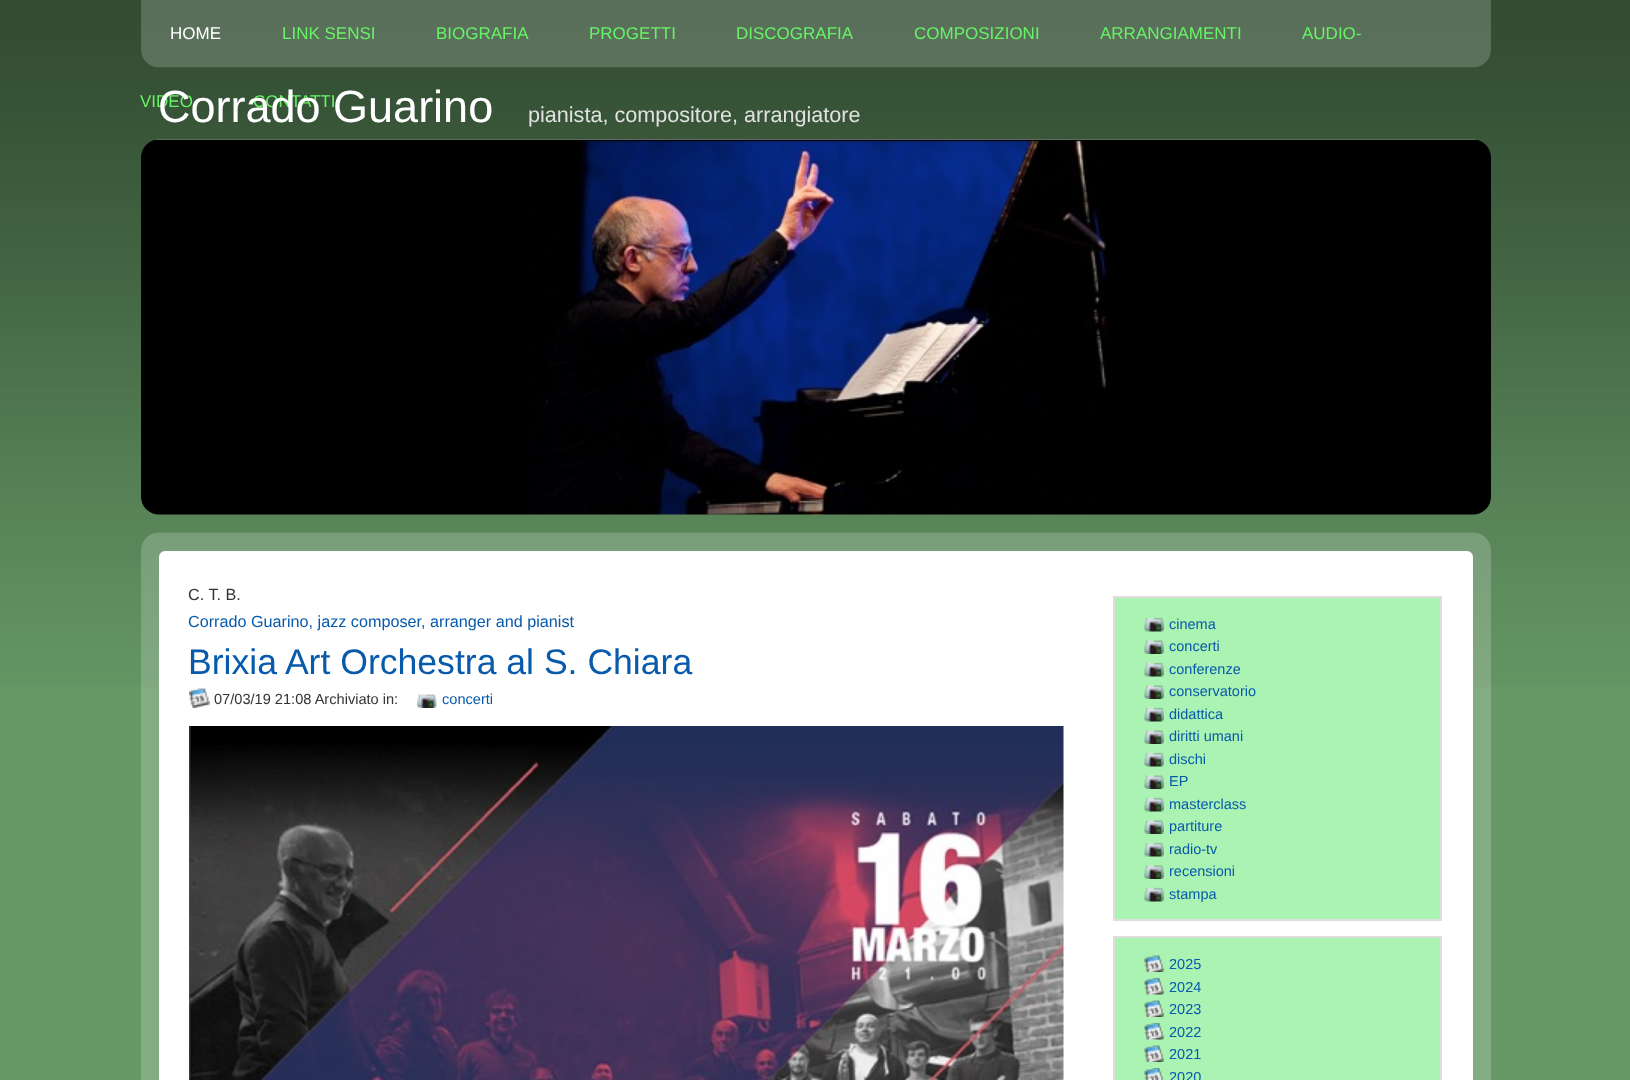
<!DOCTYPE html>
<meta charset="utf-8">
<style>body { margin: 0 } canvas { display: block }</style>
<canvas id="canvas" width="1630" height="1080"></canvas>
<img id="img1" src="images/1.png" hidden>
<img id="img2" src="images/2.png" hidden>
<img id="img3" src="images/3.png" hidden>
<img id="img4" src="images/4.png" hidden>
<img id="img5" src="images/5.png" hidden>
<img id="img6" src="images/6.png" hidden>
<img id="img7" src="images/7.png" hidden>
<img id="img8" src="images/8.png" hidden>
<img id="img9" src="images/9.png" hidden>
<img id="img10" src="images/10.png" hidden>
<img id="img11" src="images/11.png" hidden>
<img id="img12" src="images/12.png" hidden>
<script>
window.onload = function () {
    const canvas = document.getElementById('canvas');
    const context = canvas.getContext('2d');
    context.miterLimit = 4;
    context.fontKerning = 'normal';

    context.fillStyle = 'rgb(102, 153, 102)';
    context.fillRect(0, 0, 1630, 1080);
    context.drawImage(document.getElementById('img1'), 0, 0, 1630, 687);
    context.drawImage(document.getElementById('img2'), 141, 0, 1350, 68);
    context.drawImage(document.getElementById('img3'), 141, 139, 1350, 376);
    context.drawImage(document.getElementById('img4'), 141, 532, 1350, 548);
    context.fillStyle = 'rgb(255, 255, 255)';
    context.beginPath();
    context.roundRect(159, 551, 1314, 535, 6);
    context.fill();
    context.drawImage(document.getElementById('img5'), 189, 688, 21, 20);
    context.drawImage(document.getElementById('img6'), 417, 694, 20, 14);
    context.drawImage(document.getElementById('img7'), 189, 726, 875, 354);
    context.fillStyle = 'rgb(170, 243, 179)';
    context.beginPath();
    context.rect(1114, 597, 327, 323);
    context.fill();
    context.strokeStyle = 'rgb(222, 222, 222)';
    context.lineWidth = 2;
    context.stroke();
    context.drawImage(document.getElementById('img8'), 1144, 617, 20, 15);
    context.drawImage(document.getElementById('img9'), 1144, 639, 20, 15);
    context.drawImage(document.getElementById('img8'), 1144, 662, 20, 15);
    context.drawImage(document.getElementById('img9'), 1144, 684, 20, 15);
    context.drawImage(document.getElementById('img8'), 1144, 707, 20, 15);
    context.drawImage(document.getElementById('img9'), 1144, 729, 20, 15);
    context.drawImage(document.getElementById('img8'), 1144, 752, 20, 15);
    context.drawImage(document.getElementById('img9'), 1144, 774, 20, 15);
    context.drawImage(document.getElementById('img8'), 1144, 797, 20, 15);
    context.drawImage(document.getElementById('img9'), 1144, 819, 20, 15);
    context.drawImage(document.getElementById('img8'), 1144, 842, 20, 15);
    context.drawImage(document.getElementById('img9'), 1144, 864, 20, 15);
    context.drawImage(document.getElementById('img8'), 1144, 887, 20, 15);
    context.beginPath();
    context.rect(1114, 937, 327, 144);
    context.fill();
    context.stroke();
    context.drawImage(document.getElementById('img10'), 1144, 955, 20, 17);
    context.drawImage(document.getElementById('img11'), 1144, 978, 20, 17);
    context.drawImage(document.getElementById('img10'), 1144, 1000, 20, 17);
    context.drawImage(document.getElementById('img11'), 1144, 1023, 20, 17);
    context.drawImage(document.getElementById('img10'), 1144, 1045, 20, 17);
    context.drawImage(document.getElementById('img12'), 1144, 1068, 20, 12);
    context.font = '17px Liberation Sans';
    context.fillStyle = 'rgb(255, 255, 255)';
    context.fillText('HOME', 170, 39);
    context.fillStyle = 'rgb(102, 244, 102)';
    context.fillText('LINK SENSI', 282, 39);
    context.fillText('BIOGRAFIA', 436, 39);
    context.fillText('PROGETTI', 589, 39);
    context.fillText('DISCOGRAFIA', 736, 39);
    context.fillText('COMPOSIZIONI', 914, 39);
    context.fillText('ARRANGIAMENTI', 1100, 39);
    context.fillText('AUDIO-', 1302, 39);
    context.fillText('VIDEO', 140, 107);
    context.fillText('CONTATTI', 253, 107);
    context.font = '45px Liberation Sans';
    context.fillStyle = 'rgb(255, 255, 255)';
    context.fillText('Corrado Guarino', 158, 122);
    context.font = '21.6px Liberation Sans';
    context.fillStyle = 'rgb(225, 225, 225)';
    context.fillText('pianista, compositore, arrangiatore', 528, 122);
    context.font = '16.2px Liberation Sans';
    context.fillStyle = 'rgb(51, 51, 51)';
    context.fillText('C. T. B.', 188, 600);
    context.fillStyle = 'rgb(8, 90, 171)';
    context.fillText('Corrado Guarino, jazz composer, arranger and pianist', 188, 627);
    context.font = '35.6px Liberation Sans';
    context.fillText('Brixia Art Orchestra al S. Chiara', 188, 674);
    context.font = '14.6px Liberation Sans';
    context.fillStyle = 'rgb(51, 51, 51)';
    context.fillText('07/03/19 21:08 Archiviato in:', 214, 704);
    context.fillStyle = 'rgb(8, 90, 171)';
    context.fillText('concerti', 442, 704);
    context.font = '14.5px Liberation Sans';
    context.fillText('cinema', 1169, 629);
    context.fillText('concerti', 1169, 651);
    context.fillText('conferenze', 1169, 674);
    context.fillText('conservatorio', 1169, 696);
    context.fillText('didattica', 1169, 719);
    context.fillText('diritti umani', 1169, 741);
    context.fillText('dischi', 1169, 764);
    context.fillText('EP', 1169, 786);
    context.fillText('masterclass', 1169, 809);
    context.fillText('partiture', 1169, 831);
    context.fillText('radio-tv', 1169, 854);
    context.fillText('recensioni', 1169, 876);
    context.fillText('stampa', 1169, 899);
    context.fillText('2025', 1169, 969);
    context.fillText('2024', 1169, 992);
    context.fillText('2023', 1169, 1014);
    context.fillText('2022', 1169, 1037);
    context.fillText('2021', 1169, 1059);
    context.fillText('2020', 1169, 1082);
};
</script>
